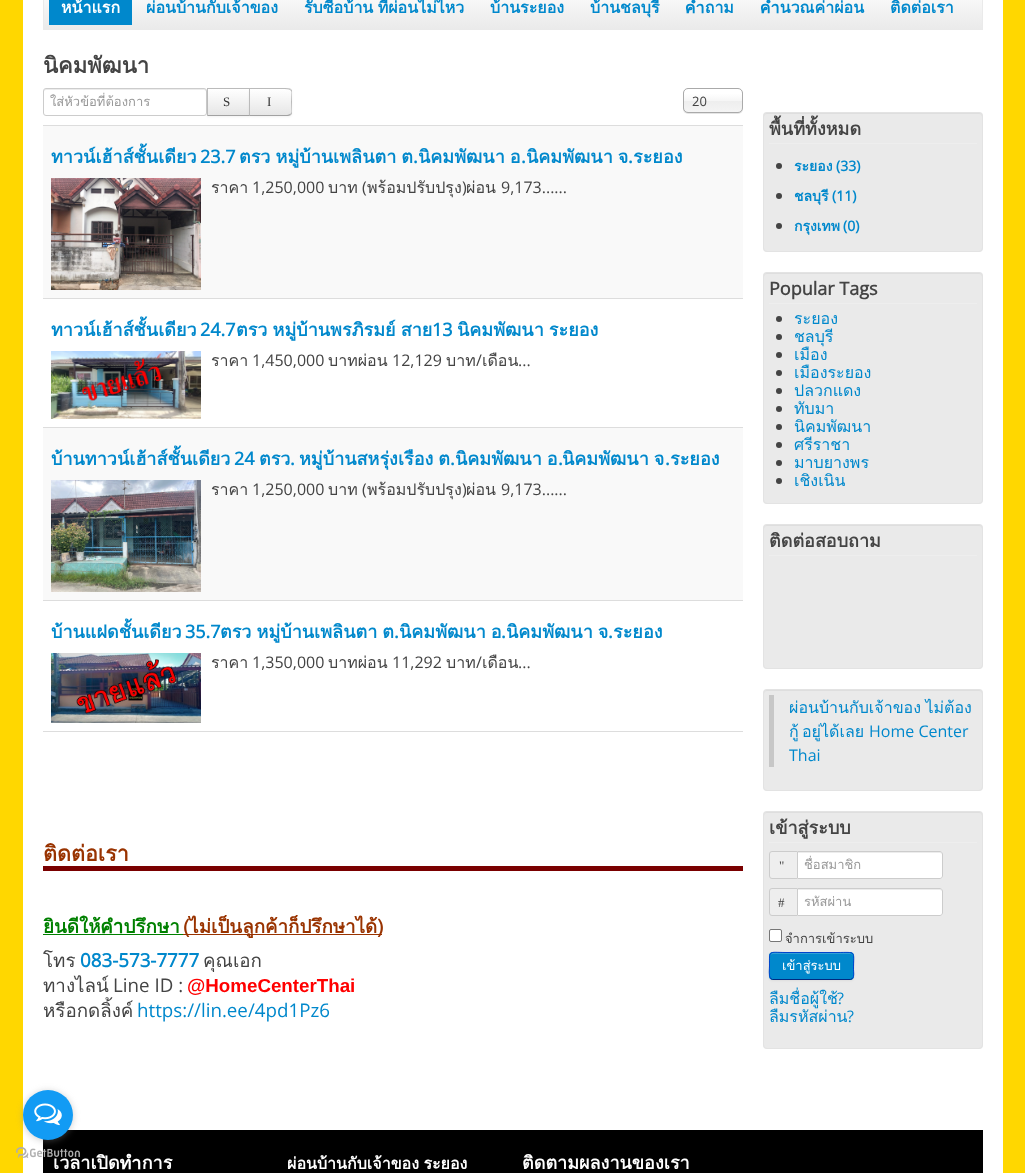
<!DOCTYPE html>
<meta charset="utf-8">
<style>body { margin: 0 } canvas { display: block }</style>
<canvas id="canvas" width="1025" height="1173"></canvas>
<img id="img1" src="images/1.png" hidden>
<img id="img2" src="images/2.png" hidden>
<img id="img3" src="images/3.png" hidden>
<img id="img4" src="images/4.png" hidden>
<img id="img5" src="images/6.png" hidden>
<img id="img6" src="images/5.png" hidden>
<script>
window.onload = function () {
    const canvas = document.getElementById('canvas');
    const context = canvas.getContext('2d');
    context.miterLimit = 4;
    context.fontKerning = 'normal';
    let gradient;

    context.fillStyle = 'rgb(255, 215, 0)';
    context.fillRect(0, 0, 1025, 1173);
    context.fillStyle = 'rgb(255, 255, 255)';
    context.fillRect(23, 0, 980, 1173);
    gradient = context.createLinearGradient(513, -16, 513, 29);
    gradient.addColorStop(0, 'rgb(255, 255, 255)');
    gradient.addColorStop(1, 'rgb(234, 234, 234)');
    context.fillStyle = gradient;
    context.fillRect(44, 0, 938, 29);
    context.strokeStyle = 'rgb(234, 234, 234)';
    context.strokeRect(43.5, -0.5, 939, 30);
    context.fillStyle = 'rgb(0, 136, 204)';
    context.fillRect(49, 0, 83, 25);
    context.fillStyle = 'rgb(236, 236, 236)';
    context.beginPath();
    context.moveTo(46, 90);
    context.lineTo(204, 90);
    context.bezierCurveTo(205, 90, 206, 91, 206, 92);
    context.bezierCurveTo(206, 91, 206, 89, 204, 89);
    context.lineTo(46, 89);
    context.bezierCurveTo(44, 89, 44, 91, 44, 92);
    context.bezierCurveTo(44, 91, 45, 90, 46, 90);
    context.closePath();
    context.fill();
    context.beginPath();
    context.roundRect(43.5, 88.5, 163, 27, 2.5);
    context.strokeStyle = 'rgb(204, 204, 204)';
    context.stroke();
    context.fillStyle = 'rgba(0, 0, 0, 0.05)';
    context.filter = 'blur(1px)';
    context.beginPath();
    context.rect(207, 89, 43, 28);
    context.fill();
    context.filter = 'none';
    gradient = context.createLinearGradient(229, 89, 229, 115);
    gradient.addColorStop(0, 'rgb(255, 255, 255)');
    gradient.addColorStop(1, 'rgb(230, 230, 230)');
    context.fillStyle = gradient;
    context.fillRect(208, 89, 41, 26);
    context.fillStyle = 'rgb(187, 187, 187)';
    context.fillRect(207, 88, 43, 1);
    context.fillStyle = 'rgb(162, 162, 162)';
    context.fillRect(207, 115, 43, 1);
    context.fillStyle = 'rgb(187, 187, 187)';
    context.fillRect(207, 88, 1, 28);
    context.fillStyle = 'rgba(0, 0, 0, 0.05)';
    context.filter = 'blur(1px)';
    context.beginPath();
    context.roundRect(249, 89, 43, 28, 4);
    context.fill();
    context.filter = 'none';
    context.save();
    context.beginPath();
    context.roundRect(249, 88, 43, 28, [0, 4, 4, 0]);
    context.clip();
    gradient = context.createLinearGradient(271, 89, 271, 115);
    gradient.addColorStop(0, 'rgb(255, 255, 255)');
    gradient.addColorStop(1, 'rgb(230, 230, 230)');
    context.fillStyle = gradient;
    context.fillRect(250, 89, 42, 26);
    context.restore();
    context.fillStyle = 'rgb(187, 187, 187)';
    context.beginPath();
    context.moveTo(249, 88);
    context.lineTo(250, 89);
    context.lineTo(282, 89);
    context.bezierCurveTo(286, 89, 289, 89, 290, 90);
    context.lineTo(291, 89);
    context.bezierCurveTo(290, 88, 287, 88, 282, 88);
    context.closePath();
    context.fill();
    context.beginPath();
    context.moveTo(292, 113.5);
    context.lineTo(291, 115);
    context.lineTo(290, 114);
    context.bezierCurveTo(291, 113.5, 291, 113, 291.5, 112);
    context.lineTo(291, 102);
    context.lineTo(291.5, 92);
    context.bezierCurveTo(291, 91, 291, 90.5, 290, 90);
    context.lineTo(291, 89);
    context.lineTo(292, 90.5);
    context.closePath();
    context.fill();
    context.fillStyle = 'rgb(162, 162, 162)';
    context.beginPath();
    context.moveTo(282, 116);
    context.bezierCurveTo(287, 116, 290, 116, 291, 115);
    context.lineTo(290, 114);
    context.bezierCurveTo(289, 115, 286, 115, 282, 115);
    context.lineTo(250, 115);
    context.lineTo(249, 116);
    context.closePath();
    context.fill();
    context.fillStyle = 'rgb(187, 187, 187)';
    context.beginPath();
    context.moveTo(249, 88);
    context.lineTo(249, 116);
    context.lineTo(250, 115);
    context.lineTo(250, 89);
    context.closePath();
    context.fill();
    context.fillStyle = 'rgba(0, 0, 0, 0.1)';
    context.filter = 'blur(0.5px)';
    context.beginPath();
    context.roundRect(683, 89, 60, 25, 5);
    context.fill();
    context.filter = 'none';
    gradient = context.createLinearGradient(713, 89, 713, 112);
    gradient.addColorStop(0.2, 'rgb(255, 255, 255)');
    gradient.addColorStop(0.5, 'rgb(246, 246, 246)');
    gradient.addColorStop(0.52, 'rgb(238, 238, 238)');
    gradient.addColorStop(1, 'rgb(244, 244, 244)');
    context.fillStyle = gradient;
    context.beginPath();
    context.roundRect(684, 89, 58, 23, 4);
    context.fill();
    context.beginPath();
    context.roundRect(683.5, 88.5, 59, 24, 4.5);
    context.strokeStyle = 'rgb(170, 170, 170)';
    context.stroke();
    context.fillStyle = 'rgb(221, 221, 221)';
    context.fillRect(43, 125, 700, 1);
    context.fillStyle = 'rgb(249, 249, 249)';
    context.fillRect(43, 126, 700, 172);
    context.fillStyle = 'rgb(221, 221, 221)';
    context.fillRect(43, 298, 700, 1);
    context.drawImage(document.getElementById('img1'), 51, 178, 150, 112);
    context.fillRect(43, 427, 700, 1);
    context.drawImage(document.getElementById('img2'), 51, 351, 150, 68);
    context.fillStyle = 'rgb(249, 249, 249)';
    context.fillRect(43, 428, 700, 172);
    context.fillStyle = 'rgb(221, 221, 221)';
    context.fillRect(43, 600, 700, 1);
    context.drawImage(document.getElementById('img3'), 51, 480, 150, 112);
    context.fillRect(43, 731, 700, 1);
    context.drawImage(document.getElementById('img4'), 51, 653, 150, 70);
    context.fillStyle = 'rgb(122, 0, 0)';
    context.fillRect(43, 866, 700, 5);
    context.fillStyle = 'rgb(0, 128, 0)';
    context.fillRect(43, 934, 140, 1);
    context.fillStyle = 'rgb(153, 51, 0)';
    context.fillRect(183, 934, 199, 1);
    context.fillStyle = 'rgb(234, 234, 234)';
    context.beginPath();
    context.roundRect(763, 112, 220, 140, 4);
    context.fill();
    context.fillStyle = 'rgb(222, 222, 222)';
    context.beginPath();
    context.moveTo(767, 114);
    context.lineTo(979, 114);
    context.bezierCurveTo(981, 114, 982, 115, 982, 117);
    context.lineTo(982, 116);
    context.bezierCurveTo(982, 114, 981, 113, 979, 113);
    context.lineTo(767, 113);
    context.bezierCurveTo(765, 113, 764, 114, 764, 116);
    context.lineTo(764, 117);
    context.bezierCurveTo(764, 115, 765, 114, 767, 114);
    context.closePath();
    context.fill();
    context.beginPath();
    context.roundRect(763.5, 112.5, 219, 139, 3.5);
    context.strokeStyle = 'rgb(227, 227, 227)';
    context.stroke();
    context.fillStyle = 'rgb(238, 238, 238)';
    context.fillRect(769, 143, 208, 1);
    context.fillStyle = 'rgb(68, 68, 68)';
    context.beginPath();
    context.arc(779, 166, 3, 0, 2 * Math.PI);
    context.fill();
    context.beginPath();
    context.arc(779, 196, 3, 0, 2 * Math.PI);
    context.fill();
    context.beginPath();
    context.arc(779, 226, 3, 0, 2 * Math.PI);
    context.fill();
    context.fillStyle = 'rgb(234, 234, 234)';
    context.beginPath();
    context.roundRect(763, 272, 220, 232, 4);
    context.fill();
    context.fillStyle = 'rgb(222, 222, 222)';
    context.beginPath();
    context.moveTo(767, 274);
    context.lineTo(979, 274);
    context.bezierCurveTo(981, 274, 982, 275, 982, 277);
    context.lineTo(982, 276);
    context.bezierCurveTo(982, 274, 981, 273, 979, 273);
    context.lineTo(767, 273);
    context.bezierCurveTo(765, 273, 764, 274, 764, 276);
    context.lineTo(764, 277);
    context.bezierCurveTo(764, 275, 765, 274, 767, 274);
    context.closePath();
    context.fill();
    context.beginPath();
    context.roundRect(763.5, 272.5, 219, 231, 3.5);
    context.stroke();
    context.fillStyle = 'rgb(238, 238, 238)';
    context.fillRect(769, 303, 208, 1);
    context.fillStyle = 'rgb(68, 68, 68)';
    context.beginPath();
    context.arc(779, 319, 3, 0, 2 * Math.PI);
    context.fill();
    context.beginPath();
    context.arc(779, 337, 3, 0, 2 * Math.PI);
    context.fill();
    context.beginPath();
    context.arc(779, 355, 3, 0, 2 * Math.PI);
    context.fill();
    context.beginPath();
    context.arc(779, 373, 3, 0, 2 * Math.PI);
    context.fill();
    context.beginPath();
    context.arc(779, 391, 3, 0, 2 * Math.PI);
    context.fill();
    context.beginPath();
    context.arc(779, 409, 3, 0, 2 * Math.PI);
    context.fill();
    context.beginPath();
    context.arc(779, 427, 3, 0, 2 * Math.PI);
    context.fill();
    context.beginPath();
    context.arc(779, 445, 3, 0, 2 * Math.PI);
    context.fill();
    context.beginPath();
    context.arc(779, 463, 3, 0, 2 * Math.PI);
    context.fill();
    context.beginPath();
    context.arc(779, 481, 3, 0, 2 * Math.PI);
    context.fill();
    context.fillStyle = 'rgb(234, 234, 234)';
    context.beginPath();
    context.roundRect(763, 524, 220, 145, 4);
    context.fill();
    context.fillStyle = 'rgb(222, 222, 222)';
    context.beginPath();
    context.moveTo(767, 526);
    context.lineTo(979, 526);
    context.bezierCurveTo(981, 526, 982, 527, 982, 529);
    context.lineTo(982, 528);
    context.bezierCurveTo(982, 526, 981, 525, 979, 525);
    context.lineTo(767, 525);
    context.bezierCurveTo(765, 525, 764, 526, 764, 528);
    context.lineTo(764, 529);
    context.bezierCurveTo(764, 527, 765, 526, 767, 526);
    context.closePath();
    context.fill();
    context.beginPath();
    context.roundRect(763.5, 524.5, 219, 144, 3.5);
    context.stroke();
    context.fillStyle = 'rgb(238, 238, 238)';
    context.fillRect(769, 555, 208, 1);
    context.fillStyle = 'rgb(234, 234, 234)';
    context.beginPath();
    context.roundRect(763, 689, 220, 102, 4);
    context.fill();
    context.fillStyle = 'rgb(222, 222, 222)';
    context.beginPath();
    context.moveTo(767, 691);
    context.lineTo(979, 691);
    context.bezierCurveTo(981, 691, 982, 692, 982, 694);
    context.lineTo(982, 693);
    context.bezierCurveTo(982, 691, 981, 690, 979, 690);
    context.lineTo(767, 690);
    context.bezierCurveTo(765, 690, 764, 691, 764, 693);
    context.lineTo(764, 694);
    context.bezierCurveTo(764, 692, 765, 691, 767, 691);
    context.closePath();
    context.fill();
    context.beginPath();
    context.roundRect(763.5, 689.5, 219, 101, 3.5);
    context.stroke();
    context.fillStyle = 'rgb(199, 199, 199)';
    context.fillRect(769, 695, 5, 72);
    context.fillStyle = 'rgb(234, 234, 234)';
    context.beginPath();
    context.roundRect(763, 811, 220, 238, 4);
    context.fill();
    context.fillStyle = 'rgb(222, 222, 222)';
    context.beginPath();
    context.moveTo(767, 813);
    context.lineTo(979, 813);
    context.bezierCurveTo(981, 813, 982, 814, 982, 816);
    context.lineTo(982, 815);
    context.bezierCurveTo(982, 813, 981, 812, 979, 812);
    context.lineTo(767, 812);
    context.bezierCurveTo(765, 812, 764, 813, 764, 815);
    context.lineTo(764, 816);
    context.bezierCurveTo(764, 814, 765, 813, 767, 813);
    context.closePath();
    context.fill();
    context.beginPath();
    context.roundRect(763.5, 811.5, 219, 237, 3.5);
    context.stroke();
    context.fillStyle = 'rgb(238, 238, 238)';
    context.fillRect(769, 842, 208, 1);
    context.beginPath();
    context.roundRect(769.5, 851.5, 28, 27, [2.5, 0, 0, 2.5]);
    context.fill();
    context.strokeStyle = 'rgb(204, 204, 204)';
    context.stroke();
    context.fillStyle = 'rgb(255, 255, 255)';
    context.beginPath();
    context.roundRect(797, 851, 146, 28, [0, 3, 3, 0]);
    context.fill();
    context.fillStyle = 'rgb(236, 236, 236)';
    context.beginPath();
    context.moveTo(798, 853);
    context.lineTo(940, 853);
    context.bezierCurveTo(941, 853, 942, 854, 942, 855);
    context.bezierCurveTo(942, 854, 942, 852, 940, 852);
    context.lineTo(798, 852);
    context.closePath();
    context.fill();
    context.beginPath();
    context.roundRect(797.5, 851.5, 145, 27, [0, 2.5, 2.5, 0]);
    context.stroke();
    context.fillStyle = 'rgb(238, 238, 238)';
    context.beginPath();
    context.roundRect(769.5, 888.5, 28, 27, [2.5, 0, 0, 2.5]);
    context.fill();
    context.stroke();
    context.fillStyle = 'rgb(255, 255, 255)';
    context.beginPath();
    context.roundRect(797, 888, 146, 28, [0, 3, 3, 0]);
    context.fill();
    context.fillStyle = 'rgb(236, 236, 236)';
    context.beginPath();
    context.moveTo(798, 890);
    context.lineTo(940, 890);
    context.bezierCurveTo(941, 890, 942, 891, 942, 892);
    context.bezierCurveTo(942, 891, 942, 889, 940, 889);
    context.lineTo(798, 889);
    context.closePath();
    context.fill();
    context.beginPath();
    context.roundRect(797.5, 888.5, 145, 27, [0, 2.5, 2.5, 0]);
    context.stroke();
    context.fillStyle = 'rgb(255, 255, 255)';
    context.beginPath();
    context.roundRect(769.5, 929.5, 12, 12, 1.5);
    context.fill();
    context.strokeStyle = 'rgb(118, 118, 118)';
    context.stroke();
    context.fillStyle = 'rgba(0, 0, 0, 0.05)';
    context.filter = 'blur(1px)';
    context.beginPath();
    context.roundRect(769, 953, 85, 28, 4);
    context.fill();
    context.filter = 'none';
    context.fillStyle = 'rgb(0, 136, 204)';
    context.beginPath();
    context.roundRect(769, 952, 85, 28, 4);
    context.fill();
    context.fillStyle = 'rgb(51, 160, 214)';
    context.beginPath();
    context.moveTo(773, 954);
    context.lineTo(850, 954);
    context.bezierCurveTo(852, 954, 853, 955, 853, 957);
    context.bezierCurveTo(853, 950, 841, 953, 837, 953);
    context.lineTo(786, 953);
    context.bezierCurveTo(782, 953, 770, 950, 770, 957);
    context.bezierCurveTo(770, 955, 771, 954, 773, 954);
    context.closePath();
    context.fill();
    context.beginPath();
    context.moveTo(852.5, 978.5);
    context.lineTo(850.5, 979.5);
    context.lineTo(772.5, 979.5);
    context.lineTo(770.5, 978.5);
    context.strokeStyle = 'rgb(0, 42, 128)';
    context.stroke();
    context.beginPath();
    context.moveTo(770.5, 978.5);
    context.bezierCurveTo(768.5, 976, 769.5, 968.5, 769.5, 966);
    context.bezierCurveTo(769.5, 949.5, 768, 952.5, 786, 952.5);
    context.lineTo(837, 952.5);
    context.bezierCurveTo(857, 952.5, 853.5, 950, 853.5, 969.5);
    context.bezierCurveTo(853.5, 972, 854.5, 976.5, 852.5, 978.5);
    context.strokeStyle = 'rgb(0, 68, 204)';
    context.stroke();
    context.fillStyle = 'rgb(0, 0, 0)';
    context.fillRect(43, 1130, 940, 43);
    context.font = 'bold 16px Loma';
    context.fillStyle = 'rgb(255, 255, 255)';
    context.fillText('หน้าแรก', 61, 13);
    context.fillStyle = 'rgb(0, 136, 204)';
    context.fillText('ผ่อนบ้านกับเจ้าของ', 146, 13);
    context.wordSpacing = '-1px';
    context.fillText('รับซื้อบ้าน ที่ผ่อนไม่ไหว', 304, 13);
    context.wordSpacing = '0px';
    context.fillText('บ้านระยอง', 490, 13);
    context.fillText('บ้านชลบุรี', 590, 13);
    context.fillText('คำถาม', 685, 13);
    context.fillText('คำนวณค่าผ่อน', 760, 13);
    context.fillText('ติดต่อเรา', 890, 13);
    context.font = 'bold 22px Loma';
    context.fillStyle = 'rgb(68, 68, 68)';
    context.fillText('นิคมพัฒนา', 43, 73);
    context.font = '13px Loma';
    context.fillStyle = 'rgb(153, 153, 153)';
    context.fillText('ใส่หัวข้อที่ต้องการ', 50, 106);
    context.font = '13px Liberation Serif';
    context.fillStyle = 'rgb(51, 51, 51)';
    context.fillText('S', 223, 106);
    context.fillText('I', 267, 106);
    context.font = '13px Open Sans';
    context.fillStyle = 'rgb(68, 68, 68)';
    context.fillText('20', 692, 106);
    context.font = 'bold 18px Loma';
    context.fillStyle = 'rgb(0, 136, 204)';
    context.fillText('ทาวน์เฮ้าส์ชั้นเดียว', 51, 163);
    context.font = 'bold 18px Open Sans';
    context.fillText('23.7', 200, 163);
    context.wordSpacing = '-1px';
    context.font = 'bold 18px Loma';
    context.fillText('ตรว หมู่บ้านเพลินตา ต', 239, 163);
    context.wordSpacing = '0px';
    context.fillText('ระยอง', 633, 163);
    context.font = 'bold 18px Open Sans';
    context.fillText('.', 413, 163);
    context.wordSpacing = '-1px';
    context.font = 'bold 18px Loma';
    context.fillText('นิคมพัฒนา อ', 418, 163);
    context.wordSpacing = '0px';
    context.font = 'bold 18px Open Sans';
    context.fillText('.', 521, 163);
    context.wordSpacing = '-1px';
    context.font = 'bold 18px Loma';
    context.fillText('นิคมพัฒนา จ', 526, 163);
    context.wordSpacing = '0px';
    context.font = 'bold 18px Open Sans';
    context.fillText('.', 628, 163);
    context.font = '16px Open Sans';
    context.fillStyle = 'rgb(68, 68, 68)';
    context.fillText('1,250,000', 252, 193);
    context.fillText('(', 362, 193);
    context.font = '16px Loma';
    context.fillText('พร้อมปรับปรุง', 367, 193);
    context.fillText('ราคา', 211, 193);
    context.fillText('บาท', 328, 193);
    context.font = '16px Open Sans';
    context.fillText(')', 462, 193);
    context.font = '16px Loma';
    context.fillText('ผ่อน', 466, 193);
    context.font = '16px Open Sans';
    context.fillText('9,173......', 501, 193);
    context.font = 'bold 18px Loma';
    context.fillStyle = 'rgb(0, 136, 204)';
    context.fillText('ทาวน์เฮ้าส์ชั้นเดียว', 51, 336);
    context.font = 'bold 18px Open Sans';
    context.fillText('24.7', 200, 336);
    context.wordSpacing = '-1px';
    context.font = 'bold 18px Loma';
    context.fillText('ตรว หมู่บ้านพรภิรมย์ สาย', 236, 336);
    context.wordSpacing = '0px';
    context.font = 'bold 18px Open Sans';
    context.fillText('13', 432, 336);
    context.wordSpacing = '-1px';
    context.font = 'bold 18px Loma';
    context.fillText('นิคมพัฒนา ระยอง', 457, 336);
    context.wordSpacing = '0px';
    context.font = '16px Open Sans';
    context.fillStyle = 'rgb(68, 68, 68)';
    context.fillText('1,450,000', 252, 366);
    context.font = '16px Loma';
    context.fillText('บาทผ่อน', 328, 366);
    context.font = '16px Open Sans';
    context.fillText('12,129', 392, 366);
    context.font = '16px Loma';
    context.fillText('ราคา', 211, 366);
    context.fillText('บาท', 446, 366);
    context.font = '16px Open Sans';
    context.fillText('/', 476, 366);
    context.font = '16px Loma';
    context.fillText('เดือน', 482, 366);
    context.font = '16px Open Sans';
    context.fillText('...', 518, 366);
    context.font = 'bold 18px Loma';
    context.fillStyle = 'rgb(0, 136, 204)';
    context.fillText('บ้านทาวน์เฮ้าส์ชั้นเดียว', 51, 465);
    context.font = 'bold 18px Open Sans';
    context.fillText('24', 234, 465);
    context.font = 'bold 18px Loma';
    context.fillText('ตรว', 259, 465);
    context.font = 'bold 18px Open Sans';
    context.fillText('.', 290, 465);
    context.wordSpacing = '-1px';
    context.font = 'bold 18px Loma';
    context.fillText('หมู่บ้านสหรุ่งเรือง ต', 299, 465);
    context.wordSpacing = '0px';
    context.fillText('ระยอง', 670, 465);
    context.font = 'bold 18px Open Sans';
    context.fillText('.', 450, 465);
    context.wordSpacing = '-1px';
    context.font = 'bold 18px Loma';
    context.fillText('นิคมพัฒนา อ', 455, 465);
    context.wordSpacing = '0px';
    context.font = 'bold 18px Open Sans';
    context.fillText('.', 558, 465);
    context.wordSpacing = '-1px';
    context.font = 'bold 18px Loma';
    context.fillText('นิคมพัฒนา จ', 562, 465);
    context.wordSpacing = '0px';
    context.font = 'bold 18px Open Sans';
    context.fillText('.', 665, 465);
    context.font = '16px Open Sans';
    context.fillStyle = 'rgb(68, 68, 68)';
    context.fillText('1,250,000', 252, 495);
    context.fillText('(', 362, 495);
    context.font = '16px Loma';
    context.fillText('พร้อมปรับปรุง', 367, 495);
    context.fillText('ราคา', 211, 495);
    context.fillText('บาท', 328, 495);
    context.font = '16px Open Sans';
    context.fillText(')', 462, 495);
    context.font = '16px Loma';
    context.fillText('ผ่อน', 466, 495);
    context.font = '16px Open Sans';
    context.fillText('9,173......', 501, 495);
    context.font = 'bold 18px Loma';
    context.fillStyle = 'rgb(0, 136, 204)';
    context.fillText('บ้านแฝดชั้นเดียว', 51, 638);
    context.font = 'bold 18px Open Sans';
    context.fillText('35.7', 185, 638);
    context.wordSpacing = '-1px';
    context.font = 'bold 18px Loma';
    context.fillText('ตรว หมู่บ้านเพลินตา ต', 220, 638);
    context.wordSpacing = '0px';
    context.fillText('ระยอง', 613, 638);
    context.font = 'bold 18px Open Sans';
    context.fillText('.', 394, 638);
    context.wordSpacing = '-1px';
    context.font = 'bold 18px Loma';
    context.fillText('นิคมพัฒนา อ', 399, 638);
    context.wordSpacing = '0px';
    context.font = 'bold 18px Open Sans';
    context.fillText('.', 501, 638);
    context.wordSpacing = '-1px';
    context.font = 'bold 18px Loma';
    context.fillText('นิคมพัฒนา จ', 506, 638);
    context.wordSpacing = '0px';
    context.font = 'bold 18px Open Sans';
    context.fillText('.', 608, 638);
    context.font = '16px Open Sans';
    context.fillStyle = 'rgb(68, 68, 68)';
    context.fillText('1,350,000', 252, 668);
    context.font = '16px Loma';
    context.fillText('บาทผ่อน', 328, 668);
    context.font = '16px Open Sans';
    context.fillText('11,292', 392, 668);
    context.font = '16px Loma';
    context.fillText('ราคา', 211, 668);
    context.fillText('บาท', 446, 668);
    context.font = '16px Open Sans';
    context.fillText('/', 476, 668);
    context.font = '16px Loma';
    context.fillText('เดือน', 482, 668);
    context.font = '16px Open Sans';
    context.fillText('...', 518, 668);
    context.font = 'bold 21.5px Loma';
    context.fillStyle = 'rgb(153, 51, 0)';
    context.fillText('ติดต่อเรา', 43, 861);
    context.font = 'bold 18.75px Loma';
    context.fillStyle = 'rgb(0, 128, 0)';
    context.fillText('ยินดีให้คำปรึกษา', 43, 933);
    context.fillStyle = 'rgb(153, 51, 0)';
    context.fillText('(ไม่เป็นลูกค้าก็ปรึกษาได้)', 183, 933);
    context.font = '18.75px Loma';
    context.fillStyle = 'rgb(68, 68, 68)';
    context.fillText('โทร', 43, 967);
    context.font = 'bold 18.75px Open Sans';
    context.fillStyle = 'rgb(0, 136, 204)';
    context.fillText('083-573-7777', 80, 967);
    context.font = '18.75px Loma';
    context.fillStyle = 'rgb(68, 68, 68)';
    context.fillText('คุณเอก', 203, 967);
    context.fillText('ทางไลน์', 43, 992);
    context.font = '18.75px Open Sans';
    context.fillText('Line ID :', 113, 992);
    context.font = 'bold 18.75px Liberation Sans';
    context.fillStyle = 'rgb(255, 0, 0)';
    context.fillText('@HomeCenterThai', 187, 992);
    context.font = '18.75px Loma';
    context.fillStyle = 'rgb(68, 68, 68)';
    context.fillText('หรือกดลิ้งค์', 43, 1017);
    context.font = '18.75px Open Sans';
    context.fillStyle = 'rgb(0, 136, 204)';
    context.fillText('https://lin.ee/4pd1Pz6', 137, 1017);
    context.font = 'bold 18px Loma';
    context.fillStyle = 'rgb(68, 68, 68)';
    context.fillText('พื้นที่ทั้งหมด', 769, 135);
    context.font = 'bold 14px Loma';
    context.fillStyle = 'rgb(0, 136, 204)';
    context.fillText('ระยอง', 794, 171);
    context.font = 'bold 14px Open Sans';
    context.fillText('(33)', 836, 171);
    context.font = 'bold 14px Loma';
    context.fillText('ชลบุรี', 794, 201);
    context.font = 'bold 14px Open Sans';
    context.fillText('(11)', 832, 201);
    context.font = 'bold 14px Loma';
    context.fillText('กรุงเทพ', 794, 231);
    context.font = 'bold 14px Open Sans';
    context.fillText('(0)', 843, 231);
    context.font = 'bold 18px Open Sans';
    context.fillStyle = 'rgb(68, 68, 68)';
    context.fillText('Popular Tags', 769, 295);
    context.font = '16px Loma';
    context.fillStyle = 'rgb(0, 136, 204)';
    context.fillText('ระยอง', 794, 324);
    context.fillText('ชลบุรี', 794, 342);
    context.fillText('เมือง', 794, 360);
    context.fillText('เมืองระยอง', 794, 378);
    context.fillText('ปลวกแดง', 794, 396);
    context.fillText('ทับมา', 794, 414);
    context.fillText('นิคมพัฒนา', 794, 432);
    context.fillText('ศรีราชา', 794, 450);
    context.fillText('มาบยางพร', 794, 468);
    context.fillText('เชิงเนิน', 794, 486);
    context.font = 'bold 18px Loma';
    context.fillStyle = 'rgb(68, 68, 68)';
    context.fillText('ติดต่อสอบถาม', 769, 547);
    context.wordSpacing = '-1px';
    context.font = '16px Loma';
    context.fillStyle = 'rgb(0, 136, 204)';
    context.fillText('ผ่อนบ้านกับเจ้าของ ไม่ต้อง', 789, 713);
    context.wordSpacing = '0px';
    context.fillText('กู้', 789, 737);
    context.fillText('อยู่ได้เลย', 802, 737);
    context.font = '16px Open Sans';
    context.fillText('Home Center', 869, 737);
    context.fillText('Thai', 789, 761);
    context.font = 'bold 18px Loma';
    context.fillStyle = 'rgb(68, 68, 68)';
    context.fillText('เข้าสู่ระบบ', 769, 834);
    context.font = '13px Liberation Serif';
    context.fillText('"', 779, 870);
    context.save();
    context.beginPath();
    context.rect(804, 854, 132, 21);
    context.clip();
    context.font = '13px Loma';
    context.fillStyle = 'rgb(153, 153, 153)';
    context.fillText('ชื่อสมาชิก', 804, 869);
    context.restore();
    context.fillText('#', 778, 907);
    context.font = '13px Loma';
    context.fillStyle = 'rgb(153, 153, 153)';
    context.fillText('รหัสผ่าน', 804, 906);
    context.fillStyle = 'rgb(68, 68, 68)';
    context.fillText('จำการเข้าระบบ', 785, 943);
    context.fillStyle = 'rgb(255, 255, 255)';
    context.fillText('เข้าสู่ระบบ', 782, 970);
    context.font = '16px Loma';
    context.fillStyle = 'rgb(0, 136, 204)';
    context.fillText('ลืมชื่อผู้ใช้', 769, 1004);
    context.font = '16px Open Sans';
    context.fillText('?', 837, 1004);
    context.font = '16px Loma';
    context.fillText('ลืมรหัสผ่าน', 769, 1022);
    context.font = '16px Open Sans';
    context.fillText('?', 847, 1022);
    context.font = 'bold 18px Loma';
    context.fillStyle = 'rgb(255, 255, 255)';
    context.fillText('เวลาเปิดทำการ', 53, 1169);
    context.wordSpacing = '-1px';
    context.font = 'bold 16px Loma';
    context.fillText('ผ่อนบ้านกับเจ้าของ ระยอง', 287, 1169);
    context.wordSpacing = '0px';
    context.font = 'bold 18px Loma';
    context.fillText('ติดตามผลงานของเรา', 522, 1169);
    context.drawImage(document.getElementById('img5'), 16, 1147, 64, 11);
    context.fillStyle = 'rgba(136, 136, 136, 0.4)';
    context.filter = 'blur(3.5px)';
    context.beginPath();
    context.roundRect(23, 1091, 50, 50, 25);
    context.fill();
    context.filter = 'none';
    context.fillStyle = 'rgb(18, 155, 244)';
    context.beginPath();
    context.arc(48, 1115, 25, 0, 2 * Math.PI);
    context.fill();
    context.drawImage(document.getElementById('img6'), 34, 1103, 28, 23);
};
</script>
